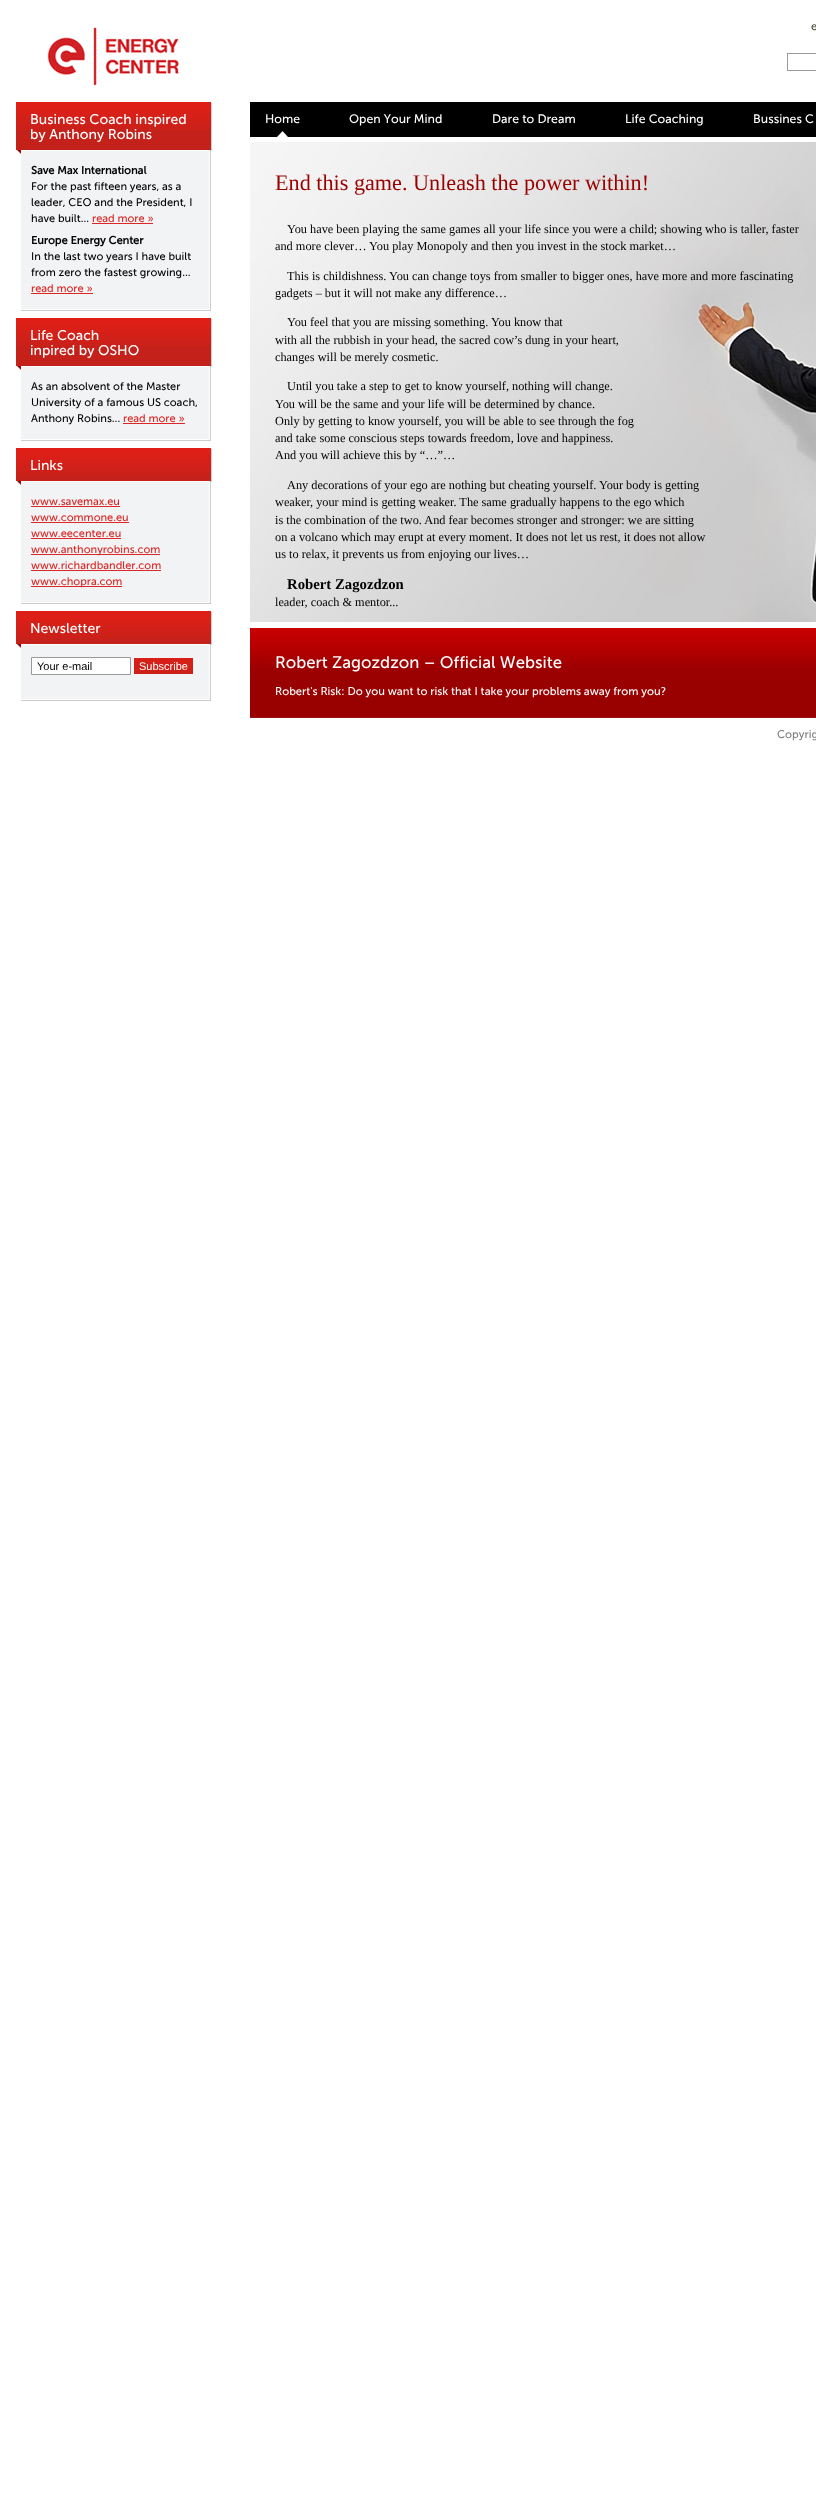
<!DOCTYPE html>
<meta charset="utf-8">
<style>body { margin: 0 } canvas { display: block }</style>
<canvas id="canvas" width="816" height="2496"></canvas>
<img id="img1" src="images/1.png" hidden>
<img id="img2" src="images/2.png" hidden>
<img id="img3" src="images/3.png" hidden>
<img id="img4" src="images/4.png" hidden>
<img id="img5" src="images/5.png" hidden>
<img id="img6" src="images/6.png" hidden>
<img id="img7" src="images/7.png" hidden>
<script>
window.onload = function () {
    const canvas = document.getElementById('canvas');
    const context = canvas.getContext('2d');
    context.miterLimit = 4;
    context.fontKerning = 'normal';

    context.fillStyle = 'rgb(255, 255, 255)';
    context.fillRect(0, 0, 816, 2496);
    context.drawImage(document.getElementById('img1'), 47, 27, 132, 59);
    context.fillStyle = 'rgb(204, 204, 204)';
    context.filter = 'blur(0.5px)';
    context.beginPath();
    context.rect(17, 103, 195, 48);
    context.fill();
    context.filter = 'none';
    context.fillStyle = 'rgb(196, 33, 26)';
    context.fillRect(16, 130, 195, 20);
    context.drawImage(document.getElementById('img2'), 16, 102, 195, 28);
    context.fillStyle = 'rgb(204, 204, 204)';
    context.filter = 'blur(0.5px)';
    context.beginPath();
    context.rect(21, 151, 190, 160);
    context.fill();
    context.filter = 'none';
    context.fillStyle = 'rgb(241, 243, 244)';
    context.beginPath();
    context.rect(20.5, 150.5, 189, 159);
    context.fill();
    context.strokeStyle = 'rgb(255, 255, 255)';
    context.stroke();
    context.drawImage(document.getElementById('img3'), 17, 150, 4, 4);
    context.fillStyle = 'rgb(218, 40, 39)';
    context.fillRect(92, 223, 61, 1);
    context.fillRect(31, 293, 62, 1);
    context.fillStyle = 'rgb(204, 204, 204)';
    context.filter = 'blur(0.5px)';
    context.beginPath();
    context.rect(17, 319, 195, 48);
    context.fill();
    context.filter = 'none';
    context.fillStyle = 'rgb(196, 33, 26)';
    context.fillRect(16, 346, 195, 20);
    context.drawImage(document.getElementById('img2'), 16, 318, 195, 28);
    context.fillStyle = 'rgb(204, 204, 204)';
    context.filter = 'blur(0.5px)';
    context.beginPath();
    context.rect(21, 367, 190, 74);
    context.fill();
    context.filter = 'none';
    context.fillStyle = 'rgb(241, 243, 244)';
    context.beginPath();
    context.rect(20.5, 366.5, 189, 73);
    context.fill();
    context.stroke();
    context.drawImage(document.getElementById('img3'), 17, 366, 4, 4);
    context.fillStyle = 'rgb(218, 40, 39)';
    context.fillRect(123, 423, 62, 1);
    context.fillStyle = 'rgb(204, 204, 204)';
    context.filter = 'blur(0.5px)';
    context.beginPath();
    context.rect(17, 449, 195, 33);
    context.fill();
    context.filter = 'none';
    context.fillStyle = 'rgb(196, 33, 26)';
    context.fillRect(16, 476, 195, 5);
    context.drawImage(document.getElementById('img2'), 16, 448, 195, 28);
    context.fillStyle = 'rgb(204, 204, 204)';
    context.filter = 'blur(0.5px)';
    context.beginPath();
    context.rect(21, 482, 190, 122);
    context.fill();
    context.filter = 'none';
    context.fillStyle = 'rgb(241, 243, 244)';
    context.beginPath();
    context.rect(20.5, 481.5, 189, 121);
    context.fill();
    context.stroke();
    context.drawImage(document.getElementById('img3'), 17, 481, 4, 4);
    context.fillStyle = 'rgb(218, 40, 39)';
    context.fillRect(31, 506, 89, 1);
    context.fillRect(31, 522, 98, 1);
    context.fillRect(31, 538, 90, 1);
    context.fillRect(31, 554, 129, 1);
    context.fillRect(31, 570, 130, 1);
    context.fillRect(31, 586, 91, 1);
    context.fillStyle = 'rgb(204, 204, 204)';
    context.filter = 'blur(0.5px)';
    context.beginPath();
    context.rect(17, 612, 195, 33);
    context.fill();
    context.filter = 'none';
    context.fillStyle = 'rgb(196, 33, 26)';
    context.fillRect(16, 639, 195, 5);
    context.drawImage(document.getElementById('img2'), 16, 611, 195, 28);
    context.fillStyle = 'rgb(204, 204, 204)';
    context.filter = 'blur(0.5px)';
    context.beginPath();
    context.rect(21, 645, 190, 56);
    context.fill();
    context.filter = 'none';
    context.fillStyle = 'rgb(241, 243, 244)';
    context.beginPath();
    context.rect(20.5, 644.5, 189, 55);
    context.fill();
    context.stroke();
    context.drawImage(document.getElementById('img3'), 17, 644, 4, 4);
    context.fillStyle = 'rgb(255, 255, 255)';
    context.beginPath();
    context.rect(31.5, 657.5, 99, 17);
    context.fill();
    context.strokeStyle = 'rgb(153, 153, 153)';
    context.stroke();
    context.drawImage(document.getElementById('img4'), 134, 658, 59, 16);
    context.strokeRect(787.5, 53.5, 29, 17);
    context.fillStyle = 'rgb(0, 0, 0)';
    context.fillRect(250, 102, 566, 35);
    context.drawImage(document.getElementById('img5'), 277, 131, 11, 6);
    context.drawImage(document.getElementById('img6'), 250, 142, 566, 480);
    context.drawImage(document.getElementById('img7'), 250, 628, 566, 90);
    context.font = '14px Museo Sans';
    context.fillStyle = 'rgb(255, 255, 255)';
    context.fillText('Business Coach inspired', 30, 124);
    context.fillText('by Anthony Robins', 30, 139);
    context.font = 'bold 11px Museo Sans';
    context.fillStyle = 'rgb(0, 0, 0)';
    context.fillText('Save Max International', 31, 174);
    context.font = '11px Museo Sans';
    context.fillText('For the past fifteen years, as a', 31, 190);
    context.fillText('leader, CEO and the President, I', 31, 206);
    context.fillText('have built...', 31, 222);
    context.fillStyle = 'rgb(218, 40, 39)';
    context.fillText('read more »', 92, 222);
    context.font = 'bold 11px Museo Sans';
    context.fillStyle = 'rgb(0, 0, 0)';
    context.fillText('Europe Energy Center', 31, 244);
    context.font = '11px Museo Sans';
    context.fillText('In the last two years I have built', 31, 260);
    context.fillText('from zero the fastest growing...', 31, 276);
    context.fillStyle = 'rgb(218, 40, 39)';
    context.fillText('read more »', 31, 292);
    context.font = '14px Museo Sans';
    context.fillStyle = 'rgb(255, 255, 255)';
    context.fillText('Life Coach', 30, 340);
    context.fillText('inpired by OSHO', 30, 355);
    context.font = '11px Museo Sans';
    context.fillStyle = 'rgb(0, 0, 0)';
    context.fillText('As an absolvent of the Master', 31, 390);
    context.fillText('University of a famous US coach,', 31, 406);
    context.fillText('Anthony Robins...', 31, 422);
    context.fillStyle = 'rgb(218, 40, 39)';
    context.fillText('read more »', 123, 422);
    context.font = '14px Museo Sans';
    context.fillStyle = 'rgb(255, 255, 255)';
    context.fillText('Links', 30, 470);
    context.font = '11px Museo Sans';
    context.fillStyle = 'rgb(218, 40, 39)';
    context.fillText('www.savemax.eu', 31, 505);
    context.fillText('www.commone.eu', 31, 521);
    context.fillText('www.eecenter.eu', 31, 537);
    context.fillText('www.anthonyrobins.com', 31, 553);
    context.fillText('www.richardbandler.com', 31, 569);
    context.fillText('www.chopra.com', 31, 585);
    context.font = '14px Museo Sans';
    context.fillStyle = 'rgb(255, 255, 255)';
    context.fillText('Newsletter', 30, 633);
    context.font = '11px Liberation Sans';
    context.fillStyle = 'rgb(0, 0, 0)';
    context.fillText('Your e-mail', 37, 670);
    context.fillStyle = 'rgb(255, 255, 255)';
    context.fillText('Subscribe', 139, 670);
    context.font = '11.2px Museo Sans';
    context.fillStyle = 'rgb(78, 78, 61)';
    context.fillText('e', 811, 30);
    context.font = '12.3px Museo Sans';
    context.fillStyle = 'rgb(255, 255, 255)';
    context.fillText('Home', 265, 123);
    context.fillText('Open Your Mind', 349, 123);
    context.fillText('Dare to Dream', 492, 123);
    context.fillText('Life Coaching', 625, 123);
    context.fillText('Bussines C', 753, 123);
    context.font = '22.2px Liberation Serif';
    context.fillStyle = 'rgb(153, 1, 0)';
    context.fillText('End this game. Unleash the power within!', 275, 190);
    context.font = '12.3px Liberation Serif';
    context.fillStyle = 'rgb(0, 0, 0)';
    context.fillText('You have been playing the same games all your life since you were a child; showing who is taller, faster', 287, 233);
    context.fillText('and more clever… You play Monopoly and then you invest in the stock market…', 275, 250);
    context.fillText('This is childishness. You can change toys from smaller to bigger ones, have more and more fascinating', 287, 280);
    context.fillText('gadgets – but it will not make any difference…', 275, 297);
    context.fillText('You feel that you are missing something. You know that', 287, 326);
    context.fillText('with all the rubbish in your head, the sacred cow’s dung in your heart,', 275, 344);
    context.fillText('changes will be merely cosmetic.', 275, 361);
    context.fillText('Until you take a step to get to know yourself, nothing will change.', 287, 390);
    context.fillText('You will be the same and your life will be determined by chance.', 275, 408);
    context.fillText('Only by getting to know yourself, you will be able to see through the fog', 275, 425);
    context.fillText('and take some conscious steps towards freedom, love and happiness.', 275, 442);
    context.fillText('And you will achieve this by “…”…', 275, 459);
    context.fillText('Any decorations of your ego are nothing but cheating yourself. Your body is getting', 287, 489);
    context.fillText('weaker, your mind is getting weaker. The same gradually happens to the ego which', 275, 506);
    context.fillText('is the combination of the two. And fear becomes stronger and stronger: we are sitting', 275, 524);
    context.fillText('on a volcano which may erupt at every moment. It does not let us rest, it does not allow', 275, 541);
    context.fillText('us to relax, it prevents us from enjoying our lives…', 275, 558);
    context.font = 'bold 14.75px Liberation Serif';
    context.fillText('Robert Zagozdzon', 287, 589);
    context.font = '12.3px Liberation Serif';
    context.fillText('leader, coach & mentor...', 275, 606);
    context.font = '16.75px Museo Sans';
    context.fillStyle = 'rgb(255, 255, 255)';
    context.fillText('Robert Zagozdzon – Official Website', 275, 668);
    context.font = '11.2px Museo Sans';
    context.fillText('Robert\'s Risk: Do you want to risk that I take your problems away from you?', 275, 695);
    context.fillStyle = 'rgb(128, 128, 128)';
    context.fillText('Copyrig', 777, 738);
};
</script>
